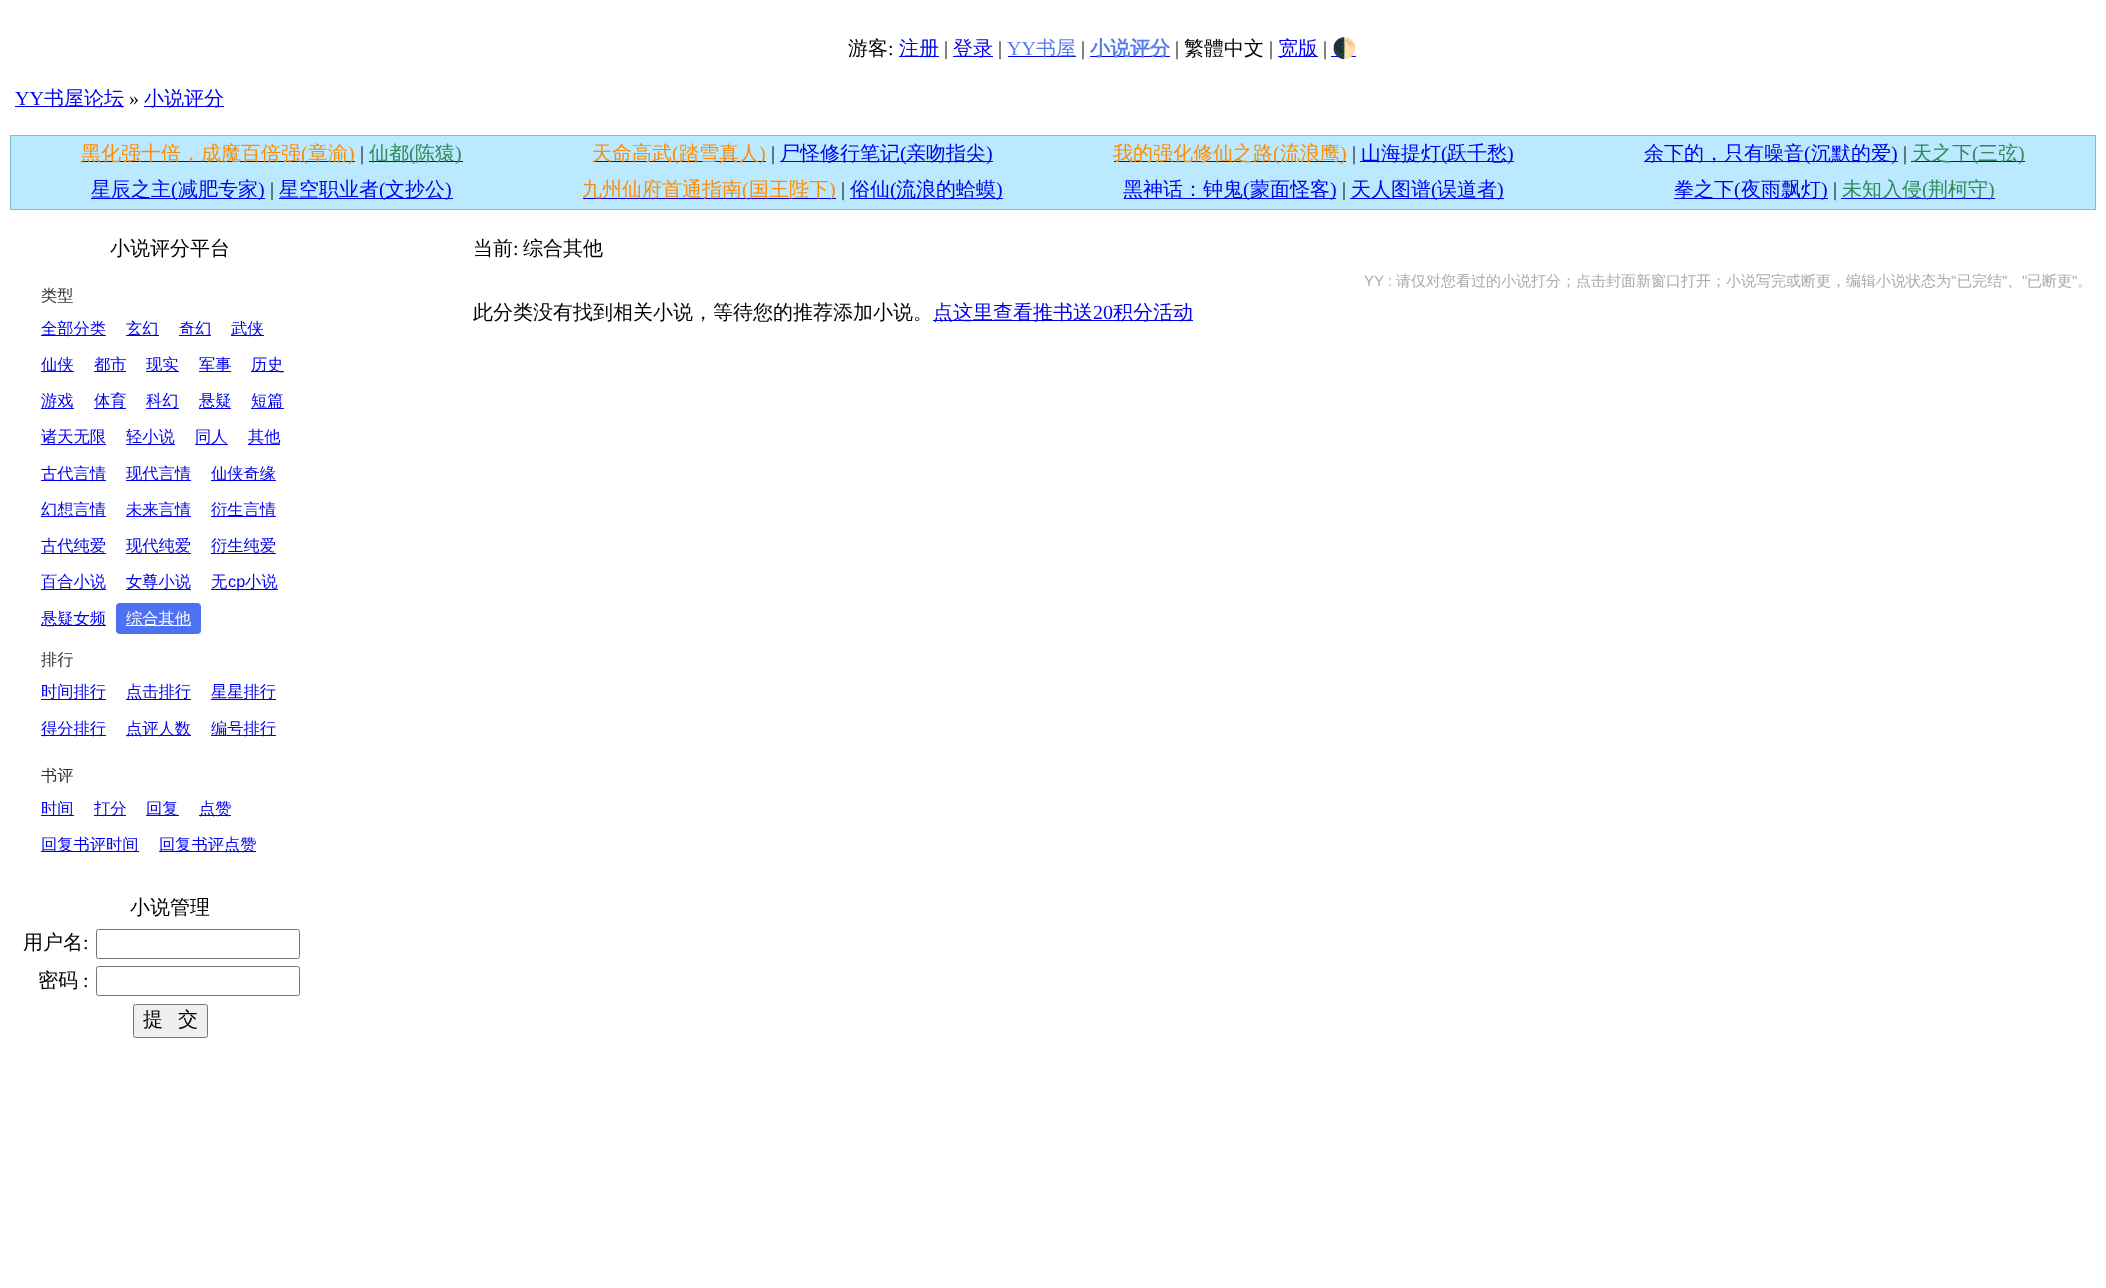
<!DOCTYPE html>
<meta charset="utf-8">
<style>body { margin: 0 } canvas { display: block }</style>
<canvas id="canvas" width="2106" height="1288"></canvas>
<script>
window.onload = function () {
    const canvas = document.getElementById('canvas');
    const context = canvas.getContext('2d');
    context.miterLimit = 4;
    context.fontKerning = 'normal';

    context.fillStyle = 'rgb(255, 255, 255)';
    context.fillRect(0, 0, 2106, 1288);
    context.fillStyle = 'rgb(0, 0, 238)';
    context.fillRect(899, 56, 40, 1);
    context.fillRect(953, 56, 40, 1);
    context.fillRect(1008, 56, 68, 1);
    context.fillRect(1090, 56, 80, 1);
    context.fillRect(1278, 56, 40, 1);
    context.fillRect(1331, 56, 25, 1);
    context.fillRect(15, 106, 109, 1);
    context.fillRect(144, 106, 80, 1);
    context.fillStyle = 'rgb(134, 185, 214)';
    context.fillRect(10, 135, 2086, 1);
    context.fillRect(2095, 135, 1, 75);
    context.fillRect(10, 209, 2086, 1);
    context.fillRect(10, 135, 1, 75);
    context.fillStyle = 'rgb(187, 233, 255)';
    context.fillRect(11, 136, 2084, 73);
    context.fillStyle = 'rgb(0, 0, 238)';
    context.fillRect(81, 161, 274, 1);
    context.fillRect(369, 161, 94, 1);
    context.fillRect(593, 161, 173, 1);
    context.fillRect(780, 161, 213, 1);
    context.fillRect(1114, 161, 232, 1);
    context.fillRect(1360, 161, 154, 1);
    context.fillRect(1644, 161, 254, 1);
    context.fillRect(1911, 161, 114, 1);
    context.fillRect(91, 198, 174, 1);
    context.fillRect(279, 198, 174, 1);
    context.fillRect(583, 198, 253, 1);
    context.fillRect(850, 198, 153, 1);
    context.fillRect(1124, 198, 212, 1);
    context.fillRect(1350, 198, 154, 1);
    context.fillRect(1674, 198, 154, 1);
    context.fillRect(1841, 198, 154, 1);
    context.fillRect(41, 335, 65, 1);
    context.fillRect(126, 335, 33, 1);
    context.fillRect(179, 335, 32, 1);
    context.fillRect(231, 335, 33, 1);
    context.fillRect(41, 371, 33, 1);
    context.fillRect(94, 371, 32, 1);
    context.fillRect(146, 371, 33, 1);
    context.fillRect(199, 371, 32, 1);
    context.fillRect(251, 371, 33, 1);
    context.fillRect(41, 408, 33, 1);
    context.fillRect(94, 408, 32, 1);
    context.fillRect(146, 408, 33, 1);
    context.fillRect(199, 408, 32, 1);
    context.fillRect(251, 408, 33, 1);
    context.fillRect(41, 444, 65, 1);
    context.fillRect(126, 444, 49, 1);
    context.fillRect(195, 444, 33, 1);
    context.fillRect(248, 444, 32, 1);
    context.fillRect(41, 480, 65, 1);
    context.fillRect(126, 480, 65, 1);
    context.fillRect(211, 480, 65, 1);
    context.fillRect(41, 516, 65, 1);
    context.fillRect(126, 516, 65, 1);
    context.fillRect(211, 516, 65, 1);
    context.fillRect(41, 553, 65, 1);
    context.fillRect(126, 553, 65, 1);
    context.fillRect(211, 553, 65, 1);
    context.fillRect(41, 589, 65, 1);
    context.fillRect(126, 589, 65, 1);
    context.fillRect(211, 589, 67, 1);
    context.fillRect(41, 625, 65, 1);
    context.fillStyle = 'rgb(78, 113, 242)';
    context.beginPath();
    context.roundRect(116, 603, 85, 31, 4);
    context.fill();
    context.fillStyle = 'rgb(255, 255, 255)';
    context.fillRect(126, 625, 65, 1);
    context.fillStyle = 'rgb(0, 0, 238)';
    context.fillRect(41, 699, 65, 1);
    context.fillRect(126, 699, 65, 1);
    context.fillRect(211, 699, 65, 1);
    context.fillRect(41, 735, 65, 1);
    context.fillRect(126, 735, 65, 1);
    context.fillRect(211, 735, 65, 1);
    context.fillRect(41, 815, 33, 1);
    context.fillRect(94, 815, 32, 1);
    context.fillRect(146, 815, 33, 1);
    context.fillRect(199, 815, 32, 1);
    context.fillRect(41, 851, 98, 1);
    context.fillRect(159, 851, 97, 1);
    context.beginPath();
    context.roundRect(96.5, 929.5, 203, 29, 2);
    context.strokeStyle = 'rgb(118, 118, 118)';
    context.stroke();
    context.beginPath();
    context.roundRect(96.5, 966.5, 203, 29, 2);
    context.stroke();
    context.fillStyle = 'rgb(239, 239, 239)';
    context.beginPath();
    context.roundRect(133.5, 1004.5, 74, 33, 2);
    context.fill();
    context.stroke();
    context.fillStyle = 'rgb(0, 0, 238)';
    context.fillRect(933, 320, 260, 1);
    context.font = '500 20px WenQuanYi Zen Hei';
    context.fillStyle = 'rgb(0, 0, 0)';
    context.fillText('游客', 848, 55);
    context.font = '20px Liberation Serif';
    context.fillText(':', 888, 55);
    context.font = '500 20px WenQuanYi Zen Hei';
    context.fillStyle = 'rgb(0, 0, 238)';
    context.fillText('注册', 899, 55);
    context.font = '20px Liberation Serif';
    context.fillStyle = 'rgb(0, 0, 0)';
    context.fillText('|', 944, 55);
    context.font = '500 20px WenQuanYi Zen Hei';
    context.fillStyle = 'rgb(0, 0, 238)';
    context.fillText('登录', 953, 55);
    context.font = '20px Liberation Serif';
    context.fillStyle = 'rgb(0, 0, 0)';
    context.fillText('|', 998, 55);
    context.fillStyle = 'rgb(85, 124, 234)';
    context.fillText('YY', 1007, 55);
    context.font = '500 20px WenQuanYi Zen Hei';
    context.fillText('书屋', 1036, 55);
    context.font = '20px Liberation Serif';
    context.fillStyle = 'rgb(0, 0, 0)';
    context.fillText('|', 1081, 55);
    context.font = 'bold 20px WenQuanYi Zen Hei';
    context.fillStyle = 'rgb(85, 124, 234)';
    context.fillText('小说评分', 1090, 55);
    context.font = '20px Liberation Serif';
    context.fillStyle = 'rgb(0, 0, 0)';
    context.fillText('|', 1175, 55);
    context.font = '500 20px WenQuanYi Zen Hei';
    context.fillText('繁體中文', 1184, 55);
    context.font = '20px Liberation Serif';
    context.fillText('|', 1269, 55);
    context.font = '500 20px WenQuanYi Zen Hei';
    context.fillStyle = 'rgb(0, 0, 238)';
    context.fillText('宽版', 1278, 55);
    context.font = '20px Liberation Serif';
    context.fillStyle = 'rgb(0, 0, 0)';
    context.fillText('|', 1323, 55);
    context.font = '20px Noto Color Emoji';
    context.fillStyle = 'rgb(0, 0, 238)';
    context.fillText('🌓', 1332, 55);
    context.font = '20px Liberation Serif';
    context.fillText('YY', 15, 105);
    context.font = '500 20px WenQuanYi Zen Hei';
    context.fillText('书屋论坛', 44, 105);
    context.font = '20px Liberation Serif';
    context.fillStyle = 'rgb(0, 0, 0)';
    context.fillText('»', 129, 105);
    context.font = '500 20px WenQuanYi Zen Hei';
    context.fillStyle = 'rgb(0, 0, 238)';
    context.fillText('小说评分', 144, 105);
    context.fillStyle = 'rgb(255, 140, 0)';
    context.fillText('黑化强十倍，成魔百倍强', 81, 160);
    context.font = '20px Liberation Serif';
    context.fillText('(', 301, 160);
    context.font = '500 20px WenQuanYi Zen Hei';
    context.fillText('章渝', 308, 160);
    context.font = '20px Liberation Serif';
    context.fillText(')', 348, 160);
    context.fillStyle = 'rgb(0, 0, 0)';
    context.fillText('|', 360, 160);
    context.font = '500 20px WenQuanYi Zen Hei';
    context.fillStyle = 'rgb(46, 139, 87)';
    context.fillText('仙都', 369, 160);
    context.font = '20px Liberation Serif';
    context.fillText('(', 409, 160);
    context.font = '500 20px WenQuanYi Zen Hei';
    context.fillText('陈猿', 415, 160);
    context.font = '20px Liberation Serif';
    context.fillText(')', 455, 160);
    context.font = '500 20px WenQuanYi Zen Hei';
    context.fillStyle = 'rgb(255, 140, 0)';
    context.fillText('天命高武', 592, 160);
    context.font = '20px Liberation Serif';
    context.fillText('(', 672, 160);
    context.font = '500 20px WenQuanYi Zen Hei';
    context.fillText('踏雪真人', 679, 160);
    context.font = '20px Liberation Serif';
    context.fillText(')', 759, 160);
    context.fillStyle = 'rgb(0, 0, 0)';
    context.fillText('|', 771, 160);
    context.font = '500 20px WenQuanYi Zen Hei';
    context.fillStyle = 'rgb(0, 0, 238)';
    context.fillText('尸怪修行笔记', 780, 160);
    context.font = '20px Liberation Serif';
    context.fillText('(', 900, 160);
    context.font = '500 20px WenQuanYi Zen Hei';
    context.fillText('亲吻指尖', 906, 160);
    context.font = '20px Liberation Serif';
    context.fillText(')', 986, 160);
    context.font = '500 20px WenQuanYi Zen Hei';
    context.fillStyle = 'rgb(255, 140, 0)';
    context.fillText('我的强化修仙之路', 1113, 160);
    context.font = '20px Liberation Serif';
    context.fillText('(', 1273, 160);
    context.font = '500 20px WenQuanYi Zen Hei';
    context.fillText('流浪鹰', 1280, 160);
    context.font = '20px Liberation Serif';
    context.fillText(')', 1340, 160);
    context.fillStyle = 'rgb(0, 0, 0)';
    context.fillText('|', 1352, 160);
    context.font = '500 20px WenQuanYi Zen Hei';
    context.fillStyle = 'rgb(0, 0, 238)';
    context.fillText('山海提灯', 1361, 160);
    context.font = '20px Liberation Serif';
    context.fillText('(', 1441, 160);
    context.font = '500 20px WenQuanYi Zen Hei';
    context.fillText('跃千愁', 1447, 160);
    context.font = '20px Liberation Serif';
    context.fillText(')', 1507, 160);
    context.font = '500 20px WenQuanYi Zen Hei';
    context.fillText('余下的，只有噪音', 1644, 160);
    context.font = '20px Liberation Serif';
    context.fillText('(', 1804, 160);
    context.font = '500 20px WenQuanYi Zen Hei';
    context.fillText('沉默的爱', 1811, 160);
    context.font = '20px Liberation Serif';
    context.fillText(')', 1891, 160);
    context.fillStyle = 'rgb(0, 0, 0)';
    context.fillText('|', 1903, 160);
    context.font = '500 20px WenQuanYi Zen Hei';
    context.fillStyle = 'rgb(46, 139, 87)';
    context.fillText('天之下', 1912, 160);
    context.font = '20px Liberation Serif';
    context.fillText('(', 1972, 160);
    context.font = '500 20px WenQuanYi Zen Hei';
    context.fillText('三弦', 1978, 160);
    context.font = '20px Liberation Serif';
    context.fillText(')', 2018, 160);
    context.font = '500 20px WenQuanYi Zen Hei';
    context.fillStyle = 'rgb(0, 0, 238)';
    context.fillText('星辰之主', 91, 196);
    context.font = '20px Liberation Serif';
    context.fillText('(', 171, 196);
    context.font = '500 20px WenQuanYi Zen Hei';
    context.fillText('减肥专家', 178, 196);
    context.font = '20px Liberation Serif';
    context.fillText(')', 258, 196);
    context.fillStyle = 'rgb(0, 0, 0)';
    context.fillText('|', 270, 196);
    context.font = '500 20px WenQuanYi Zen Hei';
    context.fillStyle = 'rgb(0, 0, 238)';
    context.fillText('星空职业者', 279, 196);
    context.font = '20px Liberation Serif';
    context.fillText('(', 379, 196);
    context.font = '500 20px WenQuanYi Zen Hei';
    context.fillText('文抄公', 385, 196);
    context.font = '20px Liberation Serif';
    context.fillText(')', 445, 196);
    context.font = '500 20px WenQuanYi Zen Hei';
    context.fillStyle = 'rgb(255, 140, 0)';
    context.fillText('九州仙府首通指南', 582, 196);
    context.font = '20px Liberation Serif';
    context.fillText('(', 742, 196);
    context.font = '500 20px WenQuanYi Zen Hei';
    context.fillText('国王陛下', 749, 196);
    context.font = '20px Liberation Serif';
    context.fillText(')', 829, 196);
    context.fillStyle = 'rgb(0, 0, 0)';
    context.fillText('|', 841, 196);
    context.font = '500 20px WenQuanYi Zen Hei';
    context.fillStyle = 'rgb(0, 0, 238)';
    context.fillText('俗仙', 850, 196);
    context.font = '20px Liberation Serif';
    context.fillText('(', 890, 196);
    context.font = '500 20px WenQuanYi Zen Hei';
    context.fillText('流浪的蛤蟆', 896, 196);
    context.font = '20px Liberation Serif';
    context.fillText(')', 996, 196);
    context.font = '500 20px WenQuanYi Zen Hei';
    context.fillText('黑神话：钟鬼', 1123, 196);
    context.font = '20px Liberation Serif';
    context.fillText('(', 1243, 196);
    context.font = '500 20px WenQuanYi Zen Hei';
    context.fillText('蒙面怪客', 1250, 196);
    context.font = '20px Liberation Serif';
    context.fillText(')', 1330, 196);
    context.fillStyle = 'rgb(0, 0, 0)';
    context.fillText('|', 1342, 196);
    context.font = '500 20px WenQuanYi Zen Hei';
    context.fillStyle = 'rgb(0, 0, 238)';
    context.fillText('天人图谱', 1351, 196);
    context.font = '20px Liberation Serif';
    context.fillText('(', 1431, 196);
    context.font = '500 20px WenQuanYi Zen Hei';
    context.fillText('误道者', 1437, 196);
    context.font = '20px Liberation Serif';
    context.fillText(')', 1497, 196);
    context.font = '500 20px WenQuanYi Zen Hei';
    context.fillText('拳之下', 1674, 196);
    context.font = '20px Liberation Serif';
    context.fillText('(', 1734, 196);
    context.font = '500 20px WenQuanYi Zen Hei';
    context.fillText('夜雨飘灯', 1741, 196);
    context.font = '20px Liberation Serif';
    context.fillText(')', 1821, 196);
    context.fillStyle = 'rgb(0, 0, 0)';
    context.fillText('|', 1833, 196);
    context.font = '500 20px WenQuanYi Zen Hei';
    context.fillStyle = 'rgb(46, 139, 87)';
    context.fillText('未知入侵', 1842, 196);
    context.font = '20px Liberation Serif';
    context.fillText('(', 1922, 196);
    context.font = '500 20px WenQuanYi Zen Hei';
    context.fillText('荆柯守', 1928, 196);
    context.font = '20px Liberation Serif';
    context.fillText(')', 1988, 196);
    context.font = '500 20px WenQuanYi Zen Hei';
    context.fillStyle = 'rgb(0, 0, 0)';
    context.fillText('小说评分平台', 110, 255);
    context.font = '500 16.25px WenQuanYi Zen Hei';
    context.fillStyle = 'rgb(51, 51, 51)';
    context.fillText('类型', 41, 301);
    context.fillStyle = 'rgb(0, 0, 238)';
    context.fillText('全部分类', 41, 334);
    context.fillText('玄幻', 126, 334);
    context.fillText('奇幻', 179, 334);
    context.fillText('武侠', 231, 334);
    context.fillText('仙侠', 41, 370);
    context.fillText('都市', 94, 370);
    context.fillText('现实', 146, 370);
    context.fillText('军事', 199, 370);
    context.fillText('历史', 251, 370);
    context.fillText('游戏', 41, 406);
    context.fillText('体育', 94, 406);
    context.fillText('科幻', 146, 406);
    context.fillText('悬疑', 199, 406);
    context.fillText('短篇', 251, 406);
    context.fillText('诸天无限', 41, 442);
    context.fillText('轻小说', 126, 442);
    context.fillText('同人', 195, 442);
    context.fillText('其他', 248, 442);
    context.fillText('古代言情', 41, 479);
    context.fillText('现代言情', 126, 479);
    context.fillText('仙侠奇缘', 211, 479);
    context.fillText('幻想言情', 41, 515);
    context.fillText('未来言情', 126, 515);
    context.fillText('衍生言情', 211, 515);
    context.fillText('古代纯爱', 41, 551);
    context.fillText('现代纯爱', 126, 551);
    context.fillText('衍生纯爱', 211, 551);
    context.fillText('百合小说', 41, 587);
    context.fillText('女尊小说', 126, 587);
    context.fillText('无', 211, 587);
    context.font = '16.25px Liberation Sans';
    context.fillText('cp', 228, 587);
    context.font = '500 16.25px WenQuanYi Zen Hei';
    context.fillText('小说', 245, 587);
    context.fillText('悬疑女频', 41, 624);
    context.fillStyle = 'rgb(255, 255, 255)';
    context.fillText('综合其他', 126, 624);
    context.fillStyle = 'rgb(51, 51, 51)';
    context.fillText('排行', 41, 665);
    context.fillStyle = 'rgb(0, 0, 238)';
    context.fillText('时间排行', 41, 697);
    context.fillText('点击排行', 126, 697);
    context.fillText('星星排行', 211, 697);
    context.fillText('得分排行', 41, 734);
    context.fillText('点评人数', 126, 734);
    context.fillText('编号排行', 211, 734);
    context.fillStyle = 'rgb(51, 51, 51)';
    context.fillText('书评', 41, 781);
    context.fillStyle = 'rgb(0, 0, 238)';
    context.fillText('时间', 41, 814);
    context.fillText('打分', 94, 814);
    context.fillText('回复', 146, 814);
    context.fillText('点赞', 199, 814);
    context.fillText('回复书评时间', 41, 850);
    context.fillText('回复书评点赞', 159, 850);
    context.font = '500 20px WenQuanYi Zen Hei';
    context.fillStyle = 'rgb(0, 0, 0)';
    context.fillText('小说管理', 130, 914);
    context.fillText('用户名', 23, 949);
    context.font = '20px Liberation Serif';
    context.fillText(':', 83, 949);
    context.font = '500 20px WenQuanYi Zen Hei';
    context.fillText('密码', 38, 987);
    context.font = '20px Liberation Serif';
    context.fillText(':', 83, 987);
    context.font = '500 20px WenQuanYi Zen Hei';
    context.fillText('提', 143, 1026);
    context.fillText('交', 178, 1026);
    context.fillText('当前', 473, 255);
    context.font = '20px Liberation Serif';
    context.fillText(':', 513, 255);
    context.font = '500 20px WenQuanYi Zen Hei';
    context.fillText('综合其他', 523, 255);
    context.font = '15px Liberation Sans';
    context.fillStyle = 'rgb(170, 170, 170)';
    context.fillText('YY :', 1364, 286);
    context.font = '500 15px WenQuanYi Zen Hei';
    context.fillText('请仅对您看过的小说打分；点击封面新窗口打开；小说写完或断更，编辑小说状态为', 1396, 286);
    context.font = '15px Liberation Sans';
    context.fillText('"', 1951, 286);
    context.font = '500 15px WenQuanYi Zen Hei';
    context.fillText('已完结', 1957, 286);
    context.font = '15px Liberation Sans';
    context.fillText('"', 2002, 286);
    context.fillText('"', 2022, 286);
    context.font = '500 15px WenQuanYi Zen Hei';
    context.fillText('已断更', 2027, 286);
    context.font = '15px Liberation Sans';
    context.fillText('"', 2072, 286);
    context.font = '500 15px WenQuanYi Zen Hei';
    context.fillText('、', 2007, 286);
    context.fillText('。', 2077, 286);
    context.font = '500 20px WenQuanYi Zen Hei';
    context.fillStyle = 'rgb(0, 0, 0)';
    context.fillText('此分类没有找到相关小说，等待您的推荐添加小说。', 473, 319);
    context.fillStyle = 'rgb(0, 0, 238)';
    context.fillText('点这里查看推书送', 933, 319);
    context.font = '20px Liberation Serif';
    context.fillText('20', 1093, 319);
    context.font = '500 20px WenQuanYi Zen Hei';
    context.fillText('积分活动', 1113, 319);
};
</script>
